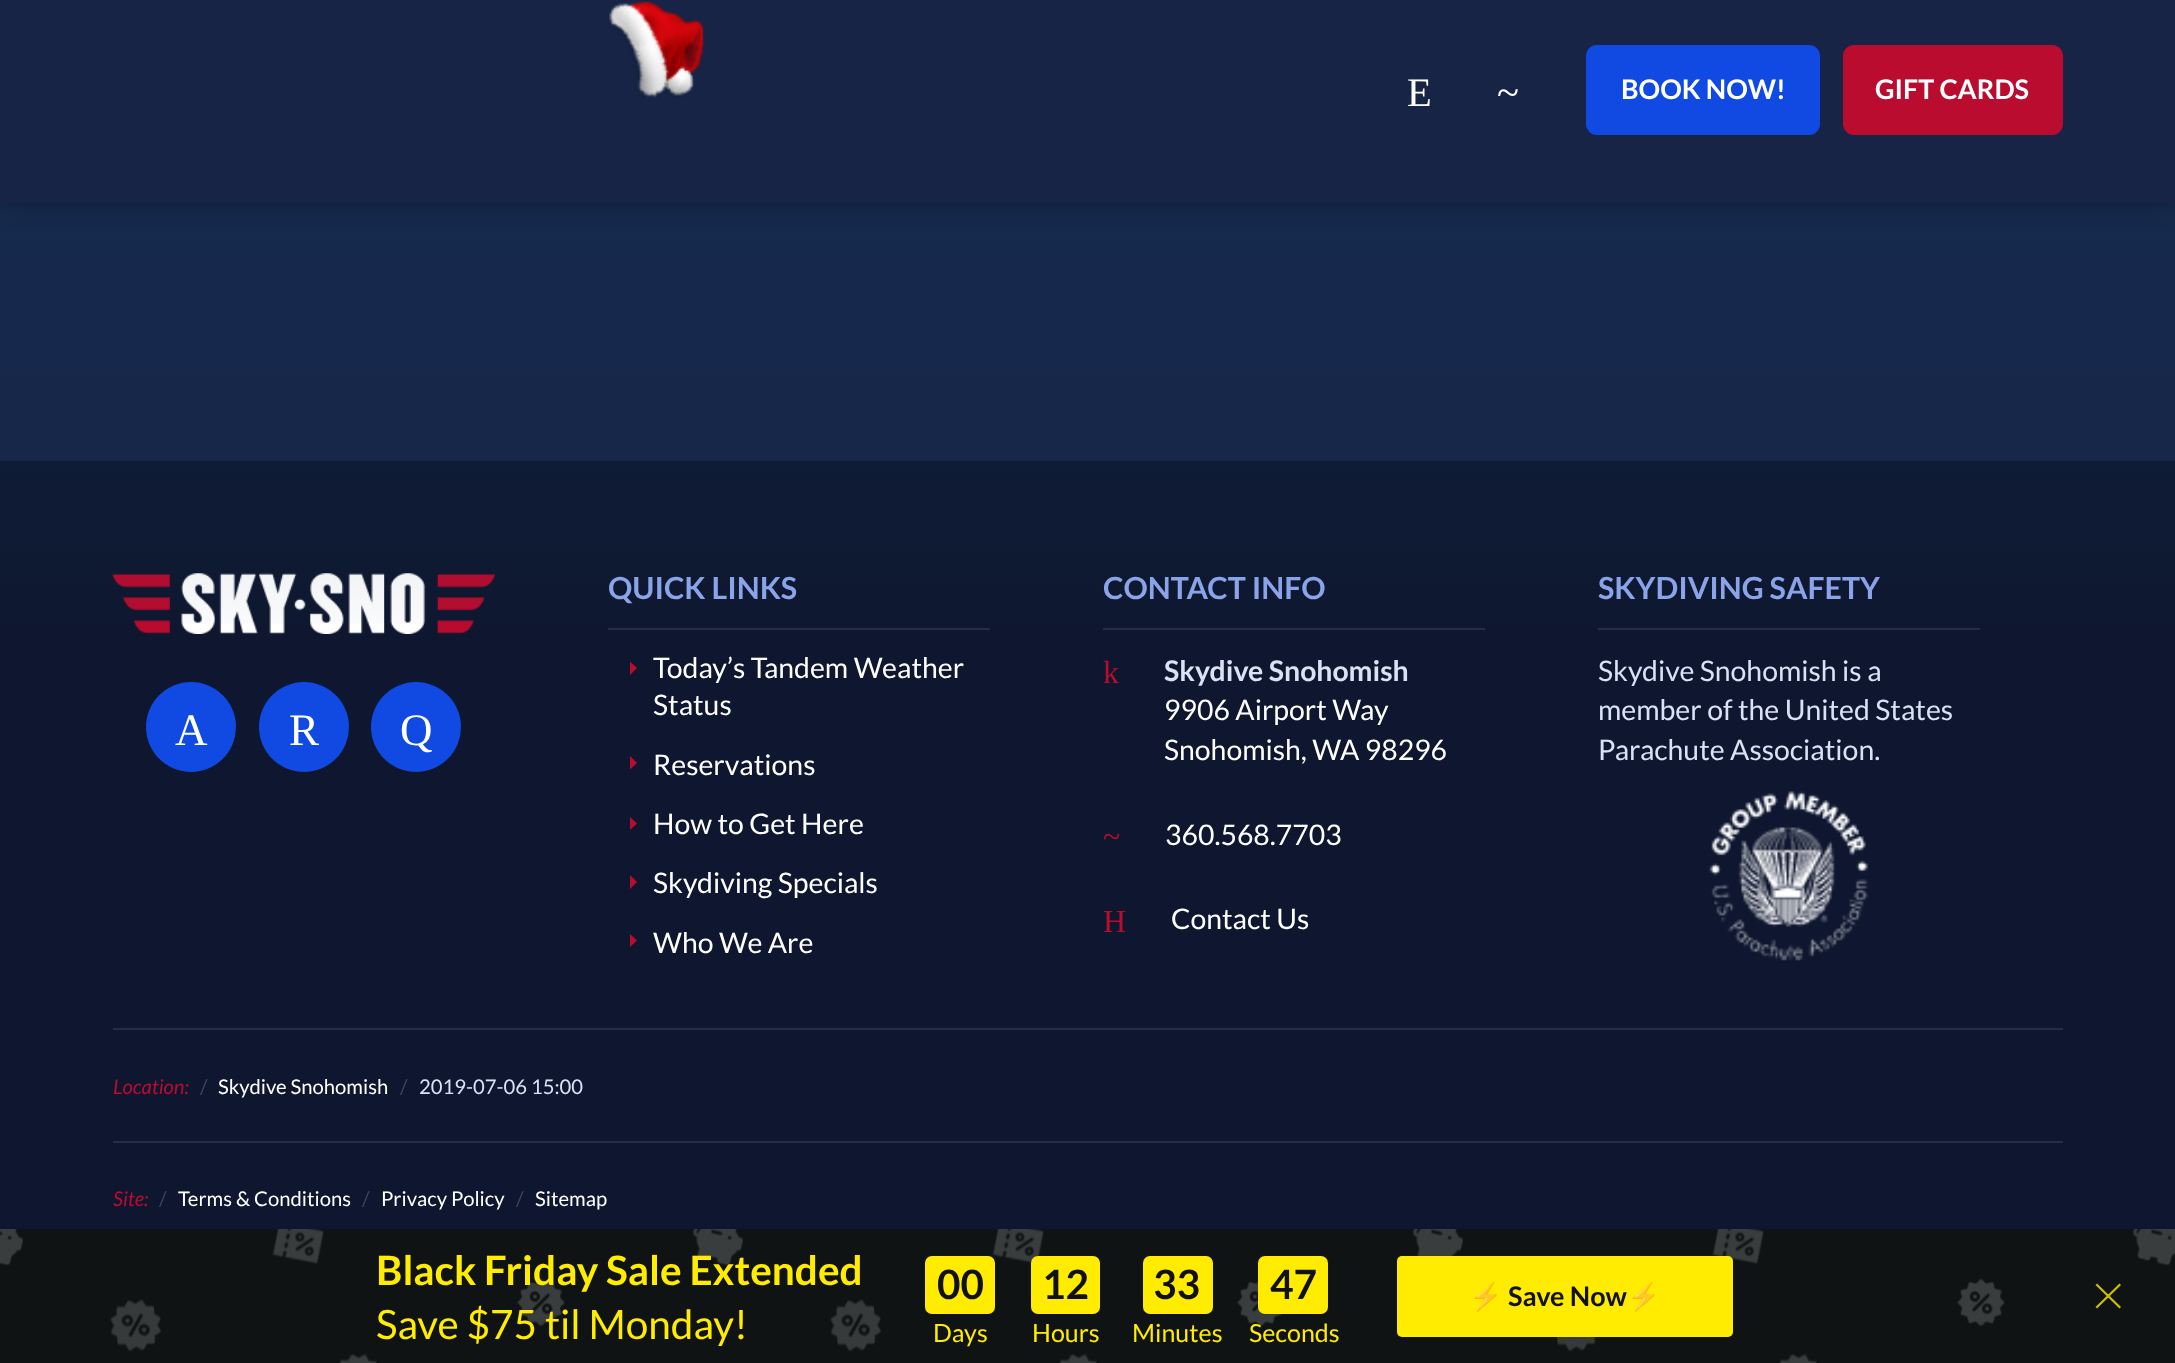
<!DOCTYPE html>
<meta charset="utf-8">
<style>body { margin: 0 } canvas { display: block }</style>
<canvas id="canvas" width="2175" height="1363"></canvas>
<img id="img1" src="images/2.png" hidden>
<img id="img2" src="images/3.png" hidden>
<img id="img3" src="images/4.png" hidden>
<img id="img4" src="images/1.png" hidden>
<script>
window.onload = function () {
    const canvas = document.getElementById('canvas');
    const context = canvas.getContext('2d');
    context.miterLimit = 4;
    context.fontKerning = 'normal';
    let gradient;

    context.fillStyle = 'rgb(14, 23, 47)';
    context.fillRect(0, 0, 2175, 1363);
    context.fillStyle = 'rgb(23, 36, 70)';
    context.fillRect(0, 0, 2175, 461);
    context.drawImage(document.getElementById('img1'), 112, 573, 383, 61);
    context.fillStyle = 'rgb(16, 74, 226)';
    context.beginPath();
    context.arc(191, 727, 45, 0, 2 * Math.PI);
    context.fill();
    context.beginPath();
    context.arc(304, 727, 45, 0, 2 * Math.PI);
    context.fill();
    context.beginPath();
    context.arc(416, 727, 45, 0, 2 * Math.PI);
    context.fill();
    context.fillStyle = 'rgb(38, 46, 68)';
    context.fillRect(608, 628, 382, 2);
    context.fillStyle = 'rgb(186, 12, 47)';
    context.beginPath();
    context.moveTo(630, 675);
    context.lineTo(630, 661.5);
    context.lineTo(637, 668);
    context.closePath();
    context.fill();
    context.beginPath();
    context.moveTo(630, 769.5);
    context.lineTo(630, 756);
    context.lineTo(637, 763);
    context.closePath();
    context.fill();
    context.beginPath();
    context.moveTo(630, 830);
    context.lineTo(630, 817);
    context.lineTo(637, 823.5);
    context.closePath();
    context.fill();
    context.beginPath();
    context.moveTo(630, 889);
    context.lineTo(630, 875);
    context.lineTo(637, 882);
    context.closePath();
    context.fill();
    context.beginPath();
    context.moveTo(630, 947);
    context.lineTo(630, 934);
    context.lineTo(637, 940.5);
    context.closePath();
    context.fill();
    context.fillStyle = 'rgb(38, 46, 68)';
    context.fillRect(1103, 628, 382, 2);
    context.fillRect(1598, 628, 382, 2);
    context.drawImage(document.getElementById('img2'), 1709, 791, 160, 170);
    context.fillRect(113, 1028, 1950, 2);
    context.fillRect(113, 1141, 1950, 2);
    context.drawImage(document.getElementById('img3'), 0, 1229, 2175, 134);
    context.fillStyle = 'rgb(255, 236, 0)';
    context.beginPath();
    context.roundRect(925, 1256, 70, 58, 7);
    context.fill();
    context.beginPath();
    context.roundRect(1031, 1256, 69, 58, 7);
    context.fill();
    context.beginPath();
    context.roundRect(1143, 1256, 70, 58, 7);
    context.fill();
    context.beginPath();
    context.roundRect(1258, 1256, 70, 58, 7);
    context.fill();
    context.beginPath();
    context.roundRect(1397, 1256, 336, 81, 5);
    context.fill();
    context.fillStyle = 'rgb(207, 193, 4)';
    context.beginPath();
    context.moveTo(2097, 1283.5);
    context.lineTo(2121, 1307);
    context.lineTo(2119.5, 1308.5);
    context.lineTo(2095.5, 1285);
    context.closePath();
    context.fill();
    context.beginPath();
    context.moveTo(2095.5, 1307);
    context.lineTo(2119.5, 1283.5);
    context.lineTo(2121, 1285);
    context.lineTo(2097, 1308.5);
    context.closePath();
    context.fill();
    context.font = '45px Liberation Serif';
    context.fillStyle = 'rgb(255, 255, 255)';
    context.fillText('A', 175, 745);
    context.fillText('R', 289, 745);
    context.fillText('Q', 400, 745);
    context.font = 'bold 30.4px Lato';
    context.fillStyle = 'rgb(144, 169, 240)';
    context.fillText('QUICK LINKS', 608, 599);
    context.font = '28.4px Lato';
    context.fillStyle = 'rgb(255, 255, 255)';
    context.fillText('Today’s Tandem Weather', 653, 678);
    context.fillText('Status', 653, 715);
    context.fillText('Reservations', 653, 775);
    context.fillText('How to Get Here', 653, 834);
    context.fillText('Skydiving Specials', 653, 893);
    context.fillText('Who We Are', 653, 953);
    context.font = 'bold 30.4px Lato';
    context.fillStyle = 'rgb(144, 169, 240)';
    context.fillText('CONTACT INFO', 1103, 599);
    context.font = '32px Liberation Serif';
    context.fillStyle = 'rgb(186, 12, 47)';
    context.fillText('k', 1103, 683);
    context.font = 'bold 28.4px Lato';
    context.fillStyle = 'rgb(219, 226, 245)';
    context.fillText('Skydive Snohomish', 1164, 681);
    context.font = '28.4px Lato';
    context.fillStyle = 'rgb(255, 255, 255)';
    context.fillText('9906 Airport Way', 1164, 720);
    context.fillText('Snohomish, WA 98296', 1164, 760);
    context.font = '32px Liberation Serif';
    context.fillStyle = 'rgb(186, 12, 47)';
    context.fillText('~', 1103, 847);
    context.font = '28.4px Lato';
    context.fillStyle = 'rgb(255, 255, 255)';
    context.fillText('360.568.7703', 1165, 845);
    context.font = '32px Liberation Serif';
    context.fillStyle = 'rgb(186, 12, 47)';
    context.fillText('H', 1103, 932);
    context.font = '28.4px Lato';
    context.fillStyle = 'rgb(255, 255, 255)';
    context.fillText('Contact Us', 1171, 929);
    context.font = 'bold 30.4px Lato';
    context.fillStyle = 'rgb(144, 169, 240)';
    context.fillText('SKYDIVING SAFETY', 1598, 599);
    gradient = context.createLinearGradient(1088, -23, 1088, 653);
    gradient.addColorStop(0, 'rgba(18, 53, 91, 0.5)');
    gradient.addColorStop(1, 'rgba(18, 53, 91, 0)');
    context.fillStyle = gradient;
    context.fillRect(0, 0, 2175, 624);
    context.save();
    context.beginPath();
    context.moveTo(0, 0);
    context.lineTo(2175, 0);
    context.lineTo(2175, 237);
    context.lineTo(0, 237);
    context.closePath();
    context.moveTo(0, -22);
    context.lineTo(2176, -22);
    context.lineTo(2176, 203);
    context.lineTo(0, 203);
    context.closePath();
    context.clip('evenodd');
    context.fillStyle = 'rgba(0, 0, 0, 0.3)';
    context.filter = 'blur(11px)';
    context.beginPath();
    context.rect(0, -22, 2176, 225);
    context.fill();
    context.filter = 'none';
    context.restore();
    context.fillStyle = 'rgba(23, 36, 70, 0.95)';
    context.fillRect(0, 0, 2175, 203);
    context.drawImage(document.getElementById('img4'), 608, 1, 97, 97);
    context.fillStyle = 'rgb(186, 12, 47)';
    context.beginPath();
    context.roundRect(1843, 45, 220, 90, 11);
    context.fill();
    context.font = 'bold 27px Lato';
    context.fillStyle = 'rgb(255, 255, 255)';
    context.fillText('GIFT CARDS', 1875, 99);
    context.fillStyle = 'rgb(16, 74, 226)';
    context.beginPath();
    context.roundRect(1586, 45, 234, 90, 11);
    context.fill();
    context.fillStyle = 'rgb(255, 255, 255)';
    context.fillText('BOOK NOW!', 1621, 99);
    context.font = '40.5px Liberation Serif';
    context.fillText('~', 1497, 106);
    context.fillText('E', 1407, 106);
    context.font = '28.4px Lato';
    context.fillStyle = 'rgb(219, 226, 245)';
    context.fillText('Skydive Snohomish is a', 1598, 681);
    context.fillText('member of the United States', 1598, 720);
    context.fillText('Parachute Association.', 1598, 760);
    context.font = 'italic 20.25px Lato';
    context.fillStyle = 'rgb(186, 12, 47)';
    context.fillText('Location:', 113, 1094);
    context.font = '20.25px Lato';
    context.fillStyle = 'rgb(62, 69, 89)';
    context.fillText('/', 200, 1094);
    context.fillStyle = 'rgb(255, 255, 255)';
    context.fillText('Skydive Snohomish', 218, 1094);
    context.fillStyle = 'rgb(62, 69, 89)';
    context.fillText('/', 400, 1094);
    context.fillStyle = 'rgb(219, 226, 245)';
    context.fillText('2019-07-06 15:00', 419, 1094);
    context.font = 'italic 20.25px Lato';
    context.fillStyle = 'rgb(186, 12, 47)';
    context.fillText('Site:', 113, 1206);
    context.font = '20.25px Lato';
    context.fillStyle = 'rgb(62, 69, 89)';
    context.fillText('/', 159, 1206);
    context.fillStyle = 'rgb(255, 255, 255)';
    context.fillText('Terms & Conditions', 178, 1206);
    context.fillStyle = 'rgb(62, 69, 89)';
    context.fillText('/', 362, 1206);
    context.fillStyle = 'rgb(255, 255, 255)';
    context.fillText('Privacy Policy', 381, 1206);
    context.fillStyle = 'rgb(62, 69, 89)';
    context.fillText('/', 516, 1206);
    context.fillStyle = 'rgb(255, 255, 255)';
    context.fillText('Sitemap', 535, 1206);
    context.font = 'bold 40.5px Lato';
    context.fillStyle = 'rgb(255, 236, 0)';
    context.fillText('Black Friday Sale Extended', 376, 1285);
    context.font = '40.5px Lato';
    context.fillText('Save $75 til Monday!', 376, 1339);
    context.font = 'bold 40.5px Lato';
    context.fillStyle = 'rgb(17, 17, 17)';
    context.fillText('00', 937, 1299);
    context.font = '25px Lato';
    context.fillStyle = 'rgb(255, 236, 0)';
    context.fillText('Days', 933, 1342);
    context.font = 'bold 40.5px Lato';
    context.fillStyle = 'rgb(17, 17, 17)';
    context.fillText('12', 1042, 1299);
    context.font = '25px Lato';
    context.fillStyle = 'rgb(255, 236, 0)';
    context.fillText('Hours', 1032, 1342);
    context.font = 'bold 40.5px Lato';
    context.fillStyle = 'rgb(17, 17, 17)';
    context.fillText('33', 1153, 1299);
    context.font = '25px Lato';
    context.fillStyle = 'rgb(255, 236, 0)';
    context.fillText('Minutes', 1132, 1342);
    context.font = 'bold 40.5px Lato';
    context.fillStyle = 'rgb(17, 17, 17)';
    context.fillText('47', 1270, 1299);
    context.font = '25px Lato';
    context.fillStyle = 'rgb(255, 236, 0)';
    context.fillText('Seconds', 1249, 1342);
    context.font = 'bold 27px Noto Color Emoji';
    context.fillStyle = 'rgb(17, 17, 17)';
    context.fillText('⚡️', 1469, 1306);
    context.font = 'bold 27px Lato';
    context.fillText('Save Now', 1508, 1306);
    context.font = 'bold 27px Noto Color Emoji';
    context.fillText('⚡️', 1627, 1306);
};
</script>
